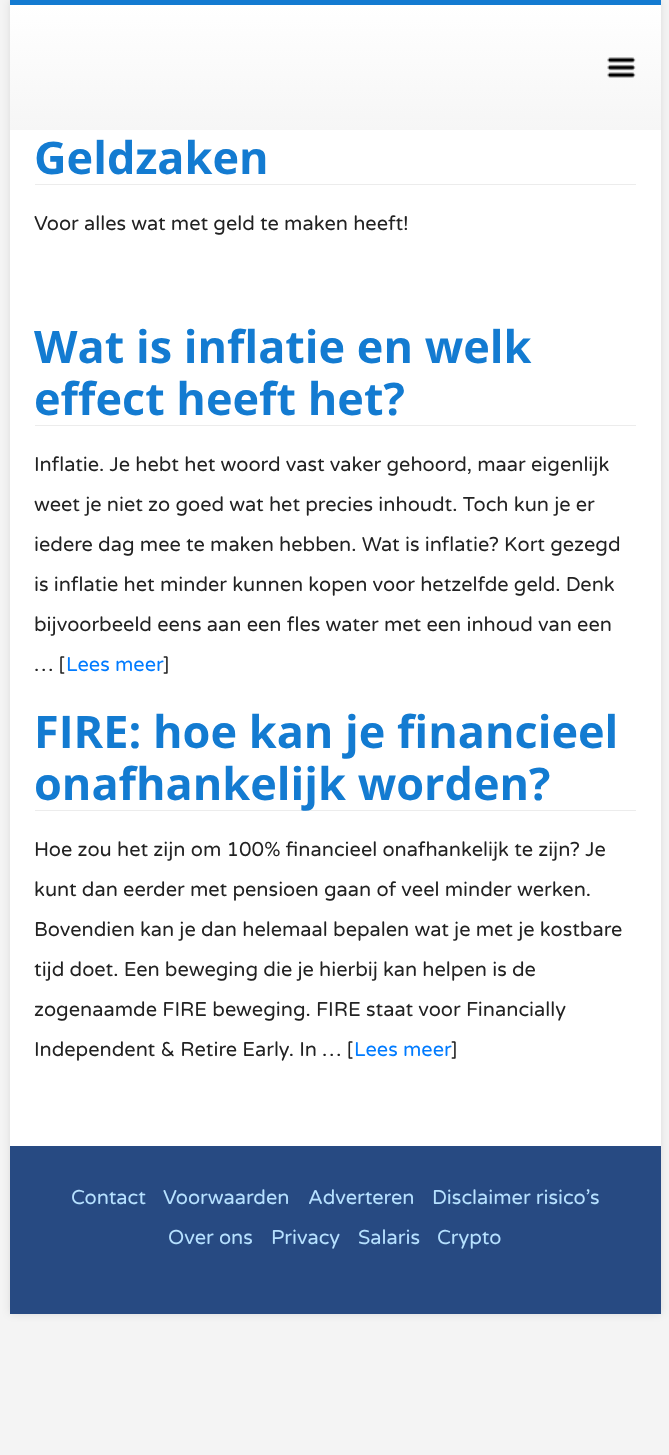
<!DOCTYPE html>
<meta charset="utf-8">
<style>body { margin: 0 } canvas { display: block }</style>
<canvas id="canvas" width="669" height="1455"></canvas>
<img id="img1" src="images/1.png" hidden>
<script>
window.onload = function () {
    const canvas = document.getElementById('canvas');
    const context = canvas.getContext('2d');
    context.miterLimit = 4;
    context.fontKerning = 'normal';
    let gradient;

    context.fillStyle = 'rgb(244, 244, 244)';
    context.fillRect(0, 0, 669, 1455);
    context.fillStyle = 'rgba(0, 0, 0, 0.1)';
    context.filter = 'blur(4px)';
    context.beginPath();
    context.rect(10, 0, 651, 1314);
    context.fill();
    context.filter = 'none';
    context.fillStyle = 'rgb(255, 255, 255)';
    context.fillRect(10, 130, 651, 1016);
    context.fillStyle = 'rgb(19, 123, 209)';
    context.fillRect(10, 0, 651, 5);
    gradient = context.createLinearGradient(336, 5, 336, 130);
    gradient.addColorStop(0, 'rgb(255, 255, 255)');
    gradient.addColorStop(1, 'rgb(246, 246, 246)');
    context.fillStyle = gradient;
    context.fillRect(10, 5, 651, 125);
    context.drawImage(document.getElementById('img1'), 607, 57, 29, 21);
    context.fillStyle = 'rgb(236, 236, 236)';
    context.fillRect(35, 184, 601, 1);
    context.fillRect(35, 425, 601, 1);
    context.fillRect(35, 810, 601, 1);
    context.fillStyle = 'rgb(39, 74, 130)';
    context.fillRect(10, 1146, 651, 168);
    context.font = 'bold 45px Open Sans';
    context.fillStyle = 'rgb(19, 123, 209)';
    context.fillText('Geldzaken', 34, 174);
    context.font = '20px Varela Round';
    context.fillStyle = 'rgb(34, 34, 34)';
    context.fillText('Voor alles wat met geld te maken heeft!', 34, 230);
    context.font = 'bold 45px Open Sans';
    context.fillStyle = 'rgb(19, 123, 209)';
    context.fillText('Wat is inflatie en welk', 34, 363);
    context.fillText('effect heeft het?', 34, 415);
    context.font = '20px Varela Round';
    context.fillStyle = 'rgb(34, 34, 34)';
    context.fillText('Inflatie. Je hebt het woord vast vaker gehoord, maar eigenlijk', 34, 471);
    context.fillText('weet je niet zo goed wat het precies inhoudt. Toch kun je er', 34, 511);
    context.fillText('iedere dag mee te maken hebben. Wat is inflatie? Kort gezegd', 34, 551);
    context.fillText('is inflatie het minder kunnen kopen voor hetzelfde geld. Denk', 34, 591);
    context.fillText('bijvoorbeeld eens aan een fles water met een inhoud van een', 34, 631);
    context.fillText('… [', 34, 671);
    context.fillStyle = 'rgb(0, 123, 255)';
    context.fillText('Lees meer', 66, 671);
    context.fillStyle = 'rgb(34, 34, 34)';
    context.fillText(']', 163, 671);
    context.font = 'bold 45px Open Sans';
    context.fillStyle = 'rgb(19, 123, 209)';
    context.fillText('FIRE: hoe kan je financieel', 34, 748);
    context.fillText('onafhankelijk worden?', 34, 800);
    context.font = '20px Varela Round';
    context.fillStyle = 'rgb(34, 34, 34)';
    context.fillText('Hoe zou het zijn om 100% financieel onafhankelijk te zijn? Je', 34, 856);
    context.fillText('kunt dan eerder met pensioen gaan of veel minder werken.', 34, 896);
    context.fillText('Bovendien kan je dan helemaal bepalen wat je met je kostbare', 34, 936);
    context.fillText('tijd doet. Een beweging die je hierbij kan helpen is de', 34, 976);
    context.fillText('zogenaamde FIRE beweging. FIRE staat voor Financially', 34, 1016);
    context.fillText('Independent & Retire Early. In … [', 34, 1056);
    context.fillStyle = 'rgb(0, 123, 255)';
    context.fillText('Lees meer', 354, 1056);
    context.fillStyle = 'rgb(34, 34, 34)';
    context.fillText(']', 451, 1056);
    context.fillStyle = 'rgb(182, 225, 255)';
    context.fillText('Contact', 71, 1204);
    context.fillText('Voorwaarden', 163, 1204);
    context.fillText('Adverteren', 308, 1204);
    context.fillText('Disclaimer risico’s', 432, 1204);
    context.fillText('Over ons', 168, 1244);
    context.fillText('Privacy', 271, 1244);
    context.fillText('Salaris', 358, 1244);
    context.fillText('Crypto', 437, 1244);
};
</script>
